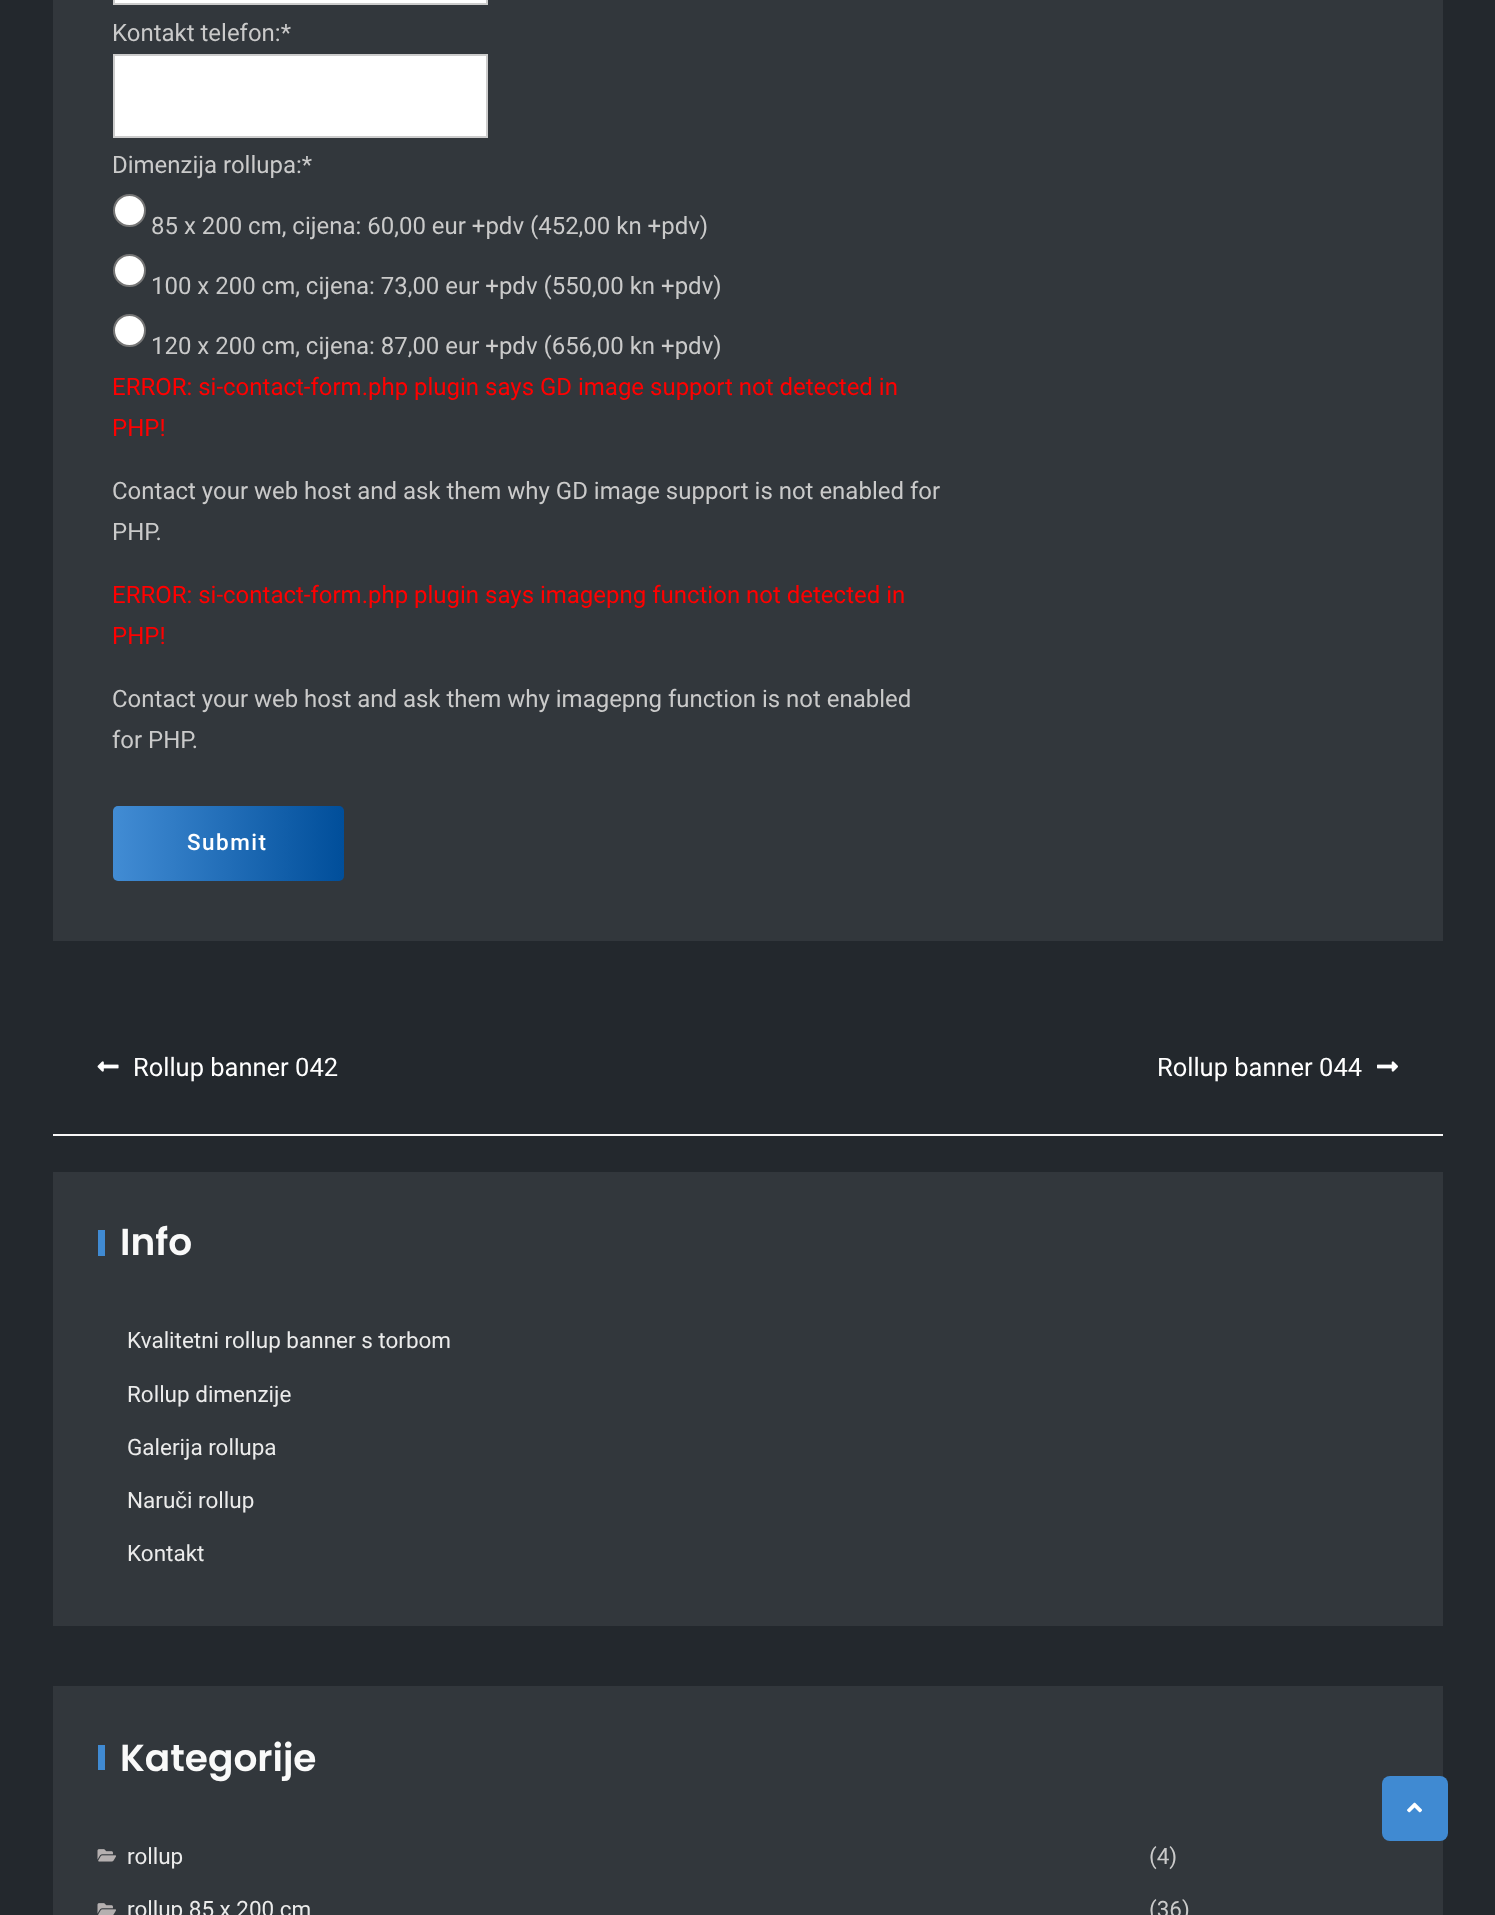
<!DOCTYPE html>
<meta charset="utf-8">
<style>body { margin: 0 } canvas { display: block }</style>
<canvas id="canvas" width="1495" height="1915"></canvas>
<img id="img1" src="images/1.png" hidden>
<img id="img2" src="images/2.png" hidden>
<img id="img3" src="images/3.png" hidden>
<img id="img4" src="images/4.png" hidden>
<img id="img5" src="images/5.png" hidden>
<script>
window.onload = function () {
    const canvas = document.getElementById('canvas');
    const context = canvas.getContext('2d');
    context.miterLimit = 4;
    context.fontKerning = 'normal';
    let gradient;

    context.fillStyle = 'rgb(35, 40, 45)';
    context.fillRect(0, 0, 1495, 1915);
    context.fillStyle = 'rgb(50, 55, 60)';
    context.fillRect(53, 0, 1390, 941);
    context.fillStyle = 'rgb(255, 255, 255)';
    context.beginPath();
    context.rect(114, -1, 373, 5);
    context.fill();
    context.strokeStyle = 'rgb(204, 204, 204)';
    context.lineWidth = 2;
    context.stroke();
    context.beginPath();
    context.rect(114, 55, 373, 82);
    context.fill();
    context.stroke();
    context.beginPath();
    context.arc(129.5, 210.5, 15.5, 0, 2 * Math.PI);
    context.fill();
    context.strokeStyle = 'rgb(118, 118, 118)';
    context.stroke();
    context.beginPath();
    context.arc(129.5, 270.5, 15.5, 0, 2 * Math.PI);
    context.fill();
    context.stroke();
    context.beginPath();
    context.arc(129.5, 330.5, 15.5, 0, 2 * Math.PI);
    context.fill();
    context.stroke();
    gradient = context.createLinearGradient(113, 843, 344, 843);
    gradient.addColorStop(0, 'rgb(66, 140, 212)');
    gradient.addColorStop(1, 'rgb(0, 78, 154)');
    context.fillStyle = gradient;
    context.beginPath();
    context.roundRect(113, 806, 231, 75, 5);
    context.fill();
    context.fillStyle = 'rgb(247, 247, 247)';
    context.fillRect(53, 1134, 1390, 2);
    context.drawImage(document.getElementById('img1'), 97, 1061, 22, 11);
    context.drawImage(document.getElementById('img2'), 1377, 1061, 21, 11);
    context.fillStyle = 'rgb(50, 55, 60)';
    context.fillRect(53, 1172, 1390, 454);
    context.fillStyle = 'rgb(64, 138, 210)';
    context.fillRect(98, 1230, 7, 26);
    context.fillStyle = 'rgb(50, 55, 60)';
    context.fillRect(53, 1686, 1390, 229);
    context.fillStyle = 'rgb(64, 138, 210)';
    context.fillRect(98, 1745, 7, 25);
    context.drawImage(document.getElementById('img3'), 97, 1849, 19, 13);
    context.drawImage(document.getElementById('img4'), 97, 1903, 19, 12);
    context.beginPath();
    context.roundRect(1382, 1776, 66, 65, 8);
    context.fill();
    context.drawImage(document.getElementById('img5'), 1407, 1802, 15, 11);
    context.font = '24px Roboto';
    context.fillStyle = 'rgb(202, 202, 202)';
    context.fillText('Kontakt telefon:*', 112, 41);
    context.fillText('Dimenzija rollupa:*', 112, 173);
    context.fillText('85 x 200 cm, cijena: 60,00 eur +pdv (452,00 kn +pdv)', 151, 234);
    context.fillText('100 x 200 cm, cijena: 73,00 eur +pdv (550,00 kn +pdv)', 151, 294);
    context.fillText('120 x 200 cm, cijena: 87,00 eur +pdv (656,00 kn +pdv)', 151, 354);
    context.fillStyle = 'rgb(255, 0, 0)';
    context.fillText('ERROR: si-contact-form.php plugin says GD image support not detected in', 112, 395);
    context.fillText('PHP!', 112, 436);
    context.fillStyle = 'rgb(202, 202, 202)';
    context.fillText('Contact your web host and ask them why GD image support is not enabled for', 112, 499);
    context.fillText('PHP.', 112, 540);
    context.fillStyle = 'rgb(255, 0, 0)';
    context.fillText('ERROR: si-contact-form.php plugin says imagepng function not detected in', 112, 603);
    context.fillText('PHP!', 112, 644);
    context.fillStyle = 'rgb(202, 202, 202)';
    context.fillText('Contact your web host and ask them why imagepng function is not enabled', 112, 707);
    context.fillText('for PHP.', 112, 748);
    context.letterSpacing = '1.5px';
    context.font = '500 22.5px Roboto';
    context.fillStyle = 'rgb(255, 255, 255)';
    context.fillText('Submit', 187, 850);
    context.letterSpacing = '0px';
    context.font = '25.5px Roboto';
    context.fillText('Rollup banner 042', 133, 1076);
    context.fillText('Rollup banner 044', 1157, 1076);
    context.font = '600 37.5px Poppins';
    context.fillStyle = 'rgb(249, 249, 249)';
    context.fillText('Info', 120, 1255);
    context.font = '22.5px Roboto';
    context.fillStyle = 'rgb(235, 235, 235)';
    context.fillText('Kvalitetni rollup banner s torbom', 127, 1348);
    context.fillText('Rollup dimenzije', 127, 1402);
    context.fillText('Galerija rollupa', 127, 1455);
    context.fillText('Naruči rollup', 127, 1508);
    context.fillText('Kontakt', 127, 1561);
    context.font = '600 37.5px Poppins';
    context.fillStyle = 'rgb(249, 249, 249)';
    context.fillText('Kategorije', 120, 1771);
    context.font = '22.5px Roboto';
    context.fillStyle = 'rgb(235, 235, 235)';
    context.fillText('rollup', 127, 1864);
    context.fillStyle = 'rgb(202, 202, 202)';
    context.fillText('(4)', 1149, 1864);
    context.fillStyle = 'rgb(235, 235, 235)';
    context.fillText('rollup 85 x 200 cm', 127, 1917);
    context.fillStyle = 'rgb(202, 202, 202)';
    context.fillText('(36)', 1149, 1917);
};
</script>
